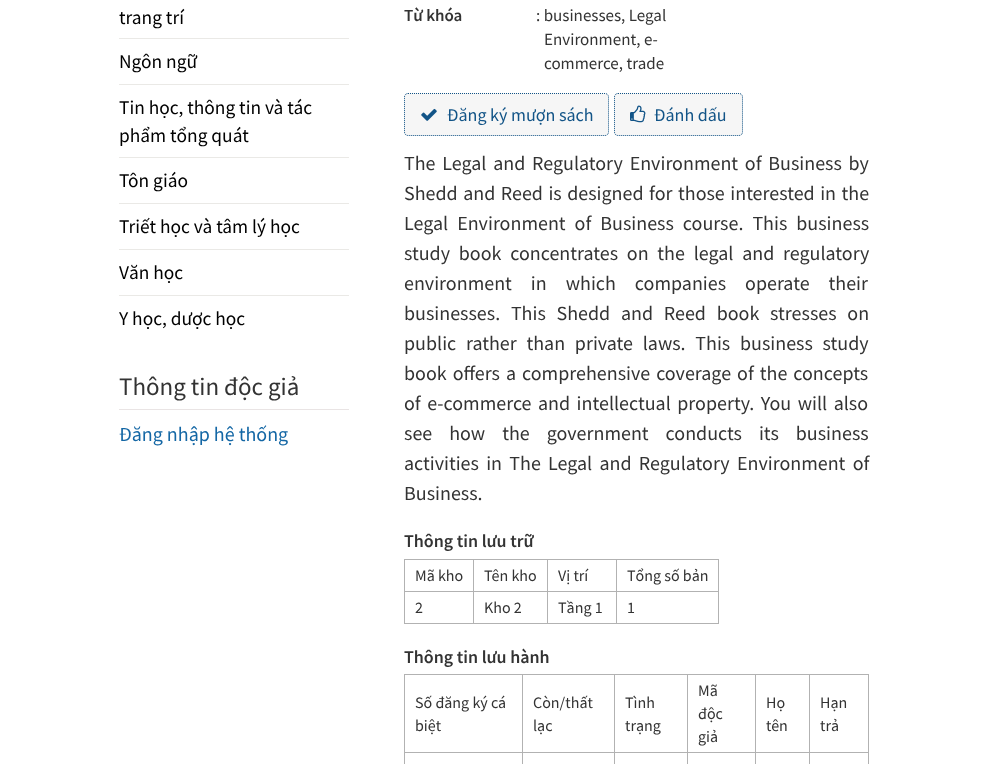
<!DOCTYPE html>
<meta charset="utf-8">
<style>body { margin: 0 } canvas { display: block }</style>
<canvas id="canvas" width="988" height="764"></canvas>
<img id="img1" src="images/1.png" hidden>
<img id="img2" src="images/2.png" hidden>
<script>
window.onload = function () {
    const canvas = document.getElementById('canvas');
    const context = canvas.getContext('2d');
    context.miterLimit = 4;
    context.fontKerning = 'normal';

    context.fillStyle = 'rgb(255, 255, 255)';
    context.fillRect(0, 0, 988, 764);
    context.fillStyle = 'rgb(234, 233, 230)';
    context.fillRect(119, 38, 230, 1);
    context.fillRect(119, 84, 230, 1);
    context.fillRect(119, 157, 230, 1);
    context.fillRect(119, 203, 230, 1);
    context.fillRect(119, 249, 230, 1);
    context.fillRect(119, 295, 230, 1);
    context.fillStyle = 'rgb(233, 228, 228)';
    context.fillRect(119, 409, 230, 1);
    context.fillStyle = 'rgb(246, 246, 246)';
    context.beginPath();
    context.roundRect(404, 93, 205, 43, 4);
    context.fill();
    context.beginPath();
    context.moveTo(408, 93.5);
    context.lineTo(605, 93.5);
    context.bezierCurveTo(607, 93.5, 608.5, 95, 608.5, 97);
    context.lineTo(608.5, 132);
    context.bezierCurveTo(608.5, 134, 607, 135.5, 605, 135.5);
    context.lineTo(408, 135.5);
    context.bezierCurveTo(406, 135.5, 404.5, 134, 404.5, 132);
    context.lineTo(404.5, 97);
    context.bezierCurveTo(404.5, 95, 406, 93.5, 408, 93.5);
    context.closePath();
    context.strokeStyle = 'rgb(18, 84, 135)';
    context.setLineDash([1, 1]);
    context.stroke();
    context.drawImage(document.getElementById('img1'), 421, 108, 16, 13);
    context.beginPath();
    context.roundRect(614, 93, 129, 43, 4);
    context.fill();
    context.beginPath();
    context.moveTo(618, 93.5);
    context.lineTo(739, 93.5);
    context.bezierCurveTo(741, 93.5, 742.5, 95, 742.5, 97);
    context.lineTo(742.5, 132);
    context.bezierCurveTo(742.5, 134, 741, 135.5, 739, 135.5);
    context.lineTo(618, 135.5);
    context.bezierCurveTo(616, 135.5, 614.5, 134, 614.5, 132);
    context.lineTo(614.5, 97);
    context.bezierCurveTo(614.5, 95, 616, 93.5, 618, 93.5);
    context.closePath();
    context.stroke();
    context.drawImage(document.getElementById('img2'), 630, 105, 16, 18);
    context.fillStyle = 'rgb(178, 178, 178)';
    context.fillRect(404, 559, 315, 1);
    context.fillRect(718, 559, 1, 65);
    context.fillRect(404, 623, 315, 1);
    context.fillRect(404, 559, 1, 65);
    context.fillRect(616, 591, 103, 1);
    context.fillRect(616, 591, 1, 33);
    context.fillRect(547, 591, 70, 1);
    context.fillRect(547, 591, 1, 33);
    context.fillRect(473, 591, 75, 1);
    context.fillRect(473, 591, 1, 33);
    context.fillRect(404, 591, 70, 1);
    context.fillRect(473, 559, 1, 33);
    context.fillRect(547, 559, 1, 33);
    context.fillRect(616, 559, 1, 33);
    context.fillRect(404, 674, 465, 1);
    context.fillRect(868, 674, 1, 90);
    context.fillRect(404, 674, 1, 90);
    context.fillRect(809, 752, 60, 1);
    context.fillRect(809, 752, 1, 12);
    context.fillRect(755, 752, 55, 1);
    context.fillRect(755, 752, 1, 12);
    context.fillRect(687, 752, 69, 1);
    context.fillRect(687, 752, 1, 12);
    context.fillRect(614, 752, 74, 1);
    context.fillRect(614, 752, 1, 12);
    context.fillRect(522, 752, 93, 1);
    context.fillRect(522, 752, 1, 12);
    context.fillRect(404, 752, 119, 1);
    context.fillRect(522, 674, 1, 79);
    context.fillRect(614, 674, 1, 79);
    context.fillRect(687, 674, 1, 79);
    context.fillRect(755, 674, 1, 79);
    context.fillRect(809, 674, 1, 79);
    context.font = '19.4px Source Sans Pro';
    context.fillStyle = 'rgb(0, 0, 0)';
    context.fillText('trang trí', 119, 24);
    context.fillText('Ngôn ngữ', 119, 68);
    context.fillText('Tin học, thông tin và tác', 119, 114);
    context.fillText('phẩm tổng quát', 119, 142);
    context.fillText('Tôn giáo', 119, 187);
    context.fillText('Triết học và tâm lý học', 119, 233);
    context.fillText('Văn học', 119, 279);
    context.fillText('Y học, dược học', 119, 325);
    context.font = '25px Source Sans Pro';
    context.fillStyle = 'rgb(51, 51, 51)';
    context.fillText('Thông tin độc giả', 119, 395);
    context.font = '20px Source Sans Pro';
    context.fillStyle = 'rgb(20, 103, 165)';
    context.fillText('Đăng nhập hệ thống', 119, 441);
    context.font = '600 17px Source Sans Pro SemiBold';
    context.fillStyle = 'rgb(51, 51, 51)';
    context.fillText('Từ khóa', 404, 21);
    context.font = '17px Source Sans Pro';
    context.fillText(': businesses, Legal', 536, 21);
    context.fillText('Environment, e-', 544, 45);
    context.fillText('commerce, trade', 544, 69);
    context.font = '18px Source Sans Pro';
    context.fillStyle = 'rgb(18, 84, 135)';
    context.fillText('Đăng ký mượn sách', 447, 121);
    context.fillText('Đánh dấu', 654, 121);
    context.wordSpacing = '2.75px';
    context.font = '20px Source Sans Pro';
    context.fillStyle = 'rgb(51, 51, 51)';
    context.fillText('The Legal and Regulatory Environment of Business by', 404, 170);
    context.wordSpacing = '1.5px';
    context.fillText('Shedd and Reed is designed for those interested in the', 404, 200);
    context.wordSpacing = '5px';
    context.fillText('Legal Environment of Business course. This business', 404, 230);
    context.wordSpacing = '4.75px';
    context.fillText('study book concentrates on the legal and regulatory', 404, 260);
    context.wordSpacing = '15px';
    context.fillText('environment in which companies operate their', 404, 290);
    context.wordSpacing = '6.75px';
    context.fillText('businesses. This Shedd and Reed book stresses on', 404, 320);
    context.wordSpacing = '5.75px';
    context.fillText('public rather than private laws. This business study', 404, 350);
    context.wordSpacing = '2px';
    context.fillText('book offers a comprehensive coverage of the concepts', 404, 380);
    context.wordSpacing = '2.5px';
    context.fillText('of e-commerce and intellectual property. You will also', 404, 410);
    context.wordSpacing = '13px';
    context.fillText('see how the government conducts its business', 404, 440);
    context.wordSpacing = '3.25px';
    context.fillText('activities in The Legal and Regulatory Environment of', 404, 470);
    context.wordSpacing = '0px';
    context.fillText('Business.', 404, 500);
    context.font = '600 18px Source Sans Pro SemiBold';
    context.fillText('Thông tin lưu trữ', 404, 547);
    context.font = '16px Source Sans Pro';
    context.fillText('Mã kho', 415, 581);
    context.fillText('Tên kho', 484, 581);
    context.fillText('Vị trí', 558, 581);
    context.fillText('Tổng số bản', 627, 581);
    context.fillText('2', 415, 613);
    context.fillText('Kho 2', 484, 613);
    context.fillText('Tầng 1', 558, 613);
    context.fillText('1', 627, 613);
    context.font = '600 18px Source Sans Pro SemiBold';
    context.fillText('Thông tin lưu hành', 404, 663);
    context.font = '16px Source Sans Pro';
    context.fillText('Số đăng ký cá', 415, 708);
    context.fillText('biệt', 415, 731);
    context.fillText('Còn/thất', 533, 708);
    context.fillText('lạc', 533, 731);
    context.fillText('Tình', 625, 708);
    context.fillText('trạng', 625, 731);
    context.fillText('Mã', 698, 696);
    context.fillText('độc', 698, 719);
    context.fillText('giả', 698, 742);
    context.fillText('Họ', 766, 708);
    context.fillText('tên', 766, 731);
    context.fillText('Hạn', 820, 708);
    context.fillText('trả', 820, 731);
};
</script>
